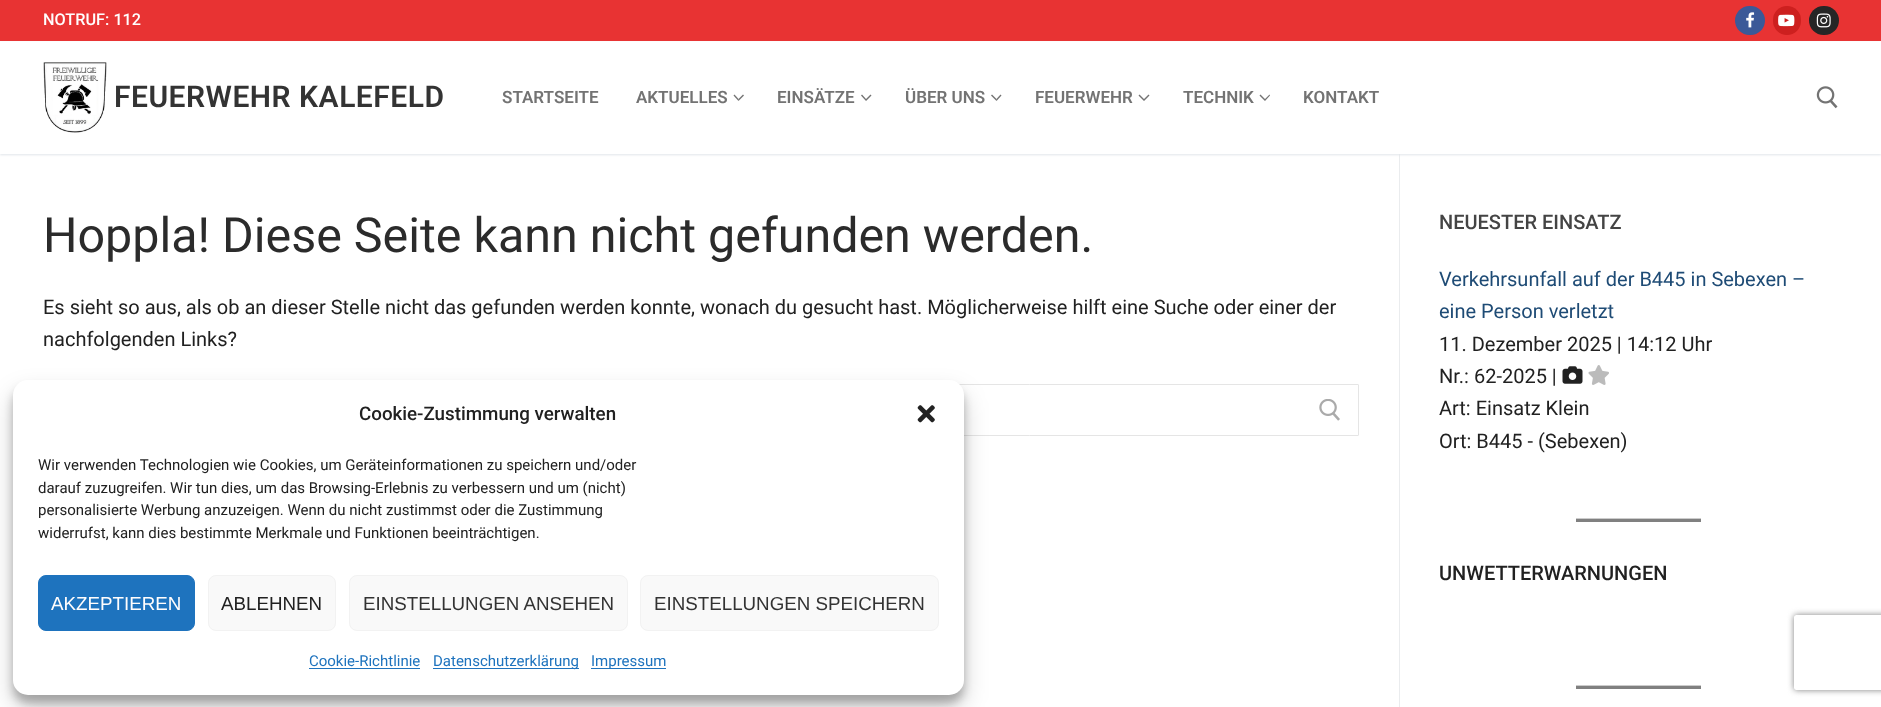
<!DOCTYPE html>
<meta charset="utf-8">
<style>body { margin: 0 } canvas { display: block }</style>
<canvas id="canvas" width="1881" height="707"></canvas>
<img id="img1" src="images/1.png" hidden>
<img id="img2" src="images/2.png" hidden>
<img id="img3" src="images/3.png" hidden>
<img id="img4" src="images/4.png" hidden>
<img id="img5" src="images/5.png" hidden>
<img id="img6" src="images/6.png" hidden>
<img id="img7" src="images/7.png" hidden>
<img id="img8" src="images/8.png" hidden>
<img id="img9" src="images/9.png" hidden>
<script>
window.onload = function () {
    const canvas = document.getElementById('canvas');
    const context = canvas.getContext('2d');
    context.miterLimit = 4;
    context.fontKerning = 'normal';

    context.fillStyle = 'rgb(255, 255, 255)';
    context.fillRect(0, 0, 1881, 707);
    context.fillStyle = 'rgb(232, 51, 51)';
    context.fillRect(0, 0, 1881, 41);
    context.fillStyle = 'rgb(59, 89, 152)';
    context.beginPath();
    context.roundRect(1735, 6, 30, 29, 14.5);
    context.fill();
    context.drawImage(document.getElementById('img1'), 1746, 12, 9, 16);
    context.fillStyle = 'rgb(205, 32, 31)';
    context.beginPath();
    context.roundRect(1773, 6, 28, 29, 14);
    context.fill();
    context.drawImage(document.getElementById('img2'), 1778, 14, 17, 13);
    context.fillStyle = 'rgb(38, 38, 38)';
    context.beginPath();
    context.roundRect(1809, 6, 30, 29, 14.5);
    context.fill();
    context.drawImage(document.getElementById('img3'), 1816, 13, 15, 15);
    context.fillStyle = 'rgb(234, 236, 238)';
    context.fillRect(1399, 154, 1, 553);
    context.fillStyle = 'rgb(225, 229, 234)';
    context.filter = 'blur(1px)';
    context.beginPath();
    context.rect(0, 43, 1881, 112);
    context.fill();
    context.filter = 'none';
    context.fillStyle = 'rgb(255, 255, 255)';
    context.fillRect(0, 42, 1881, 112);
    context.drawImage(document.getElementById('img4'), 43, 62, 64, 71);
    context.fillStyle = 'rgb(115, 115, 115)';
    context.beginPath();
    context.moveTo(738.5, 101);
    context.lineTo(733.5, 95.5);
    context.lineTo(734.5, 94.5);
    context.lineTo(738.5, 99);
    context.closePath();
    context.fill();
    context.fillStyle = 'rgba(0, 0, 0, 0.55)';
    context.beginPath();
    context.moveTo(744, 95.5);
    context.lineTo(738.5, 101);
    context.lineTo(738.5, 99);
    context.lineTo(743, 94.5);
    context.closePath();
    context.fill();
    context.fillStyle = 'rgb(115, 115, 115)';
    context.beginPath();
    context.moveTo(866, 101);
    context.lineTo(861, 95.5);
    context.lineTo(862, 94.5);
    context.lineTo(866, 99);
    context.closePath();
    context.moveTo(871.5, 95.5);
    context.lineTo(866, 101);
    context.lineTo(866, 99);
    context.lineTo(870.5, 94.5);
    context.closePath();
    context.fill();
    context.beginPath();
    context.moveTo(996.5, 101);
    context.lineTo(991, 95.5);
    context.lineTo(992, 94.5);
    context.lineTo(996.5, 99);
    context.closePath();
    context.fill();
    context.fillStyle = 'rgba(0, 0, 0, 0.55)';
    context.beginPath();
    context.moveTo(1001.5, 95.5);
    context.lineTo(996.5, 101);
    context.lineTo(996.5, 99);
    context.lineTo(1000.5, 94.5);
    context.closePath();
    context.fill();
    context.fillStyle = 'rgb(115, 115, 115)';
    context.beginPath();
    context.moveTo(1144, 101);
    context.lineTo(1138.5, 95.5);
    context.lineTo(1139.5, 94.5);
    context.lineTo(1144, 99);
    context.closePath();
    context.moveTo(1149.5, 95.5);
    context.lineTo(1144, 101);
    context.lineTo(1144, 99);
    context.lineTo(1148.5, 94.5);
    context.closePath();
    context.fill();
    context.beginPath();
    context.moveTo(1265, 101);
    context.lineTo(1259.5, 95.5);
    context.lineTo(1260.5, 94.5);
    context.lineTo(1265, 99);
    context.closePath();
    context.moveTo(1270, 95.5);
    context.lineTo(1265, 101);
    context.lineTo(1265, 99);
    context.lineTo(1269.5, 94.5);
    context.closePath();
    context.fill();
    context.drawImage(document.getElementById('img5'), 1816, 86, 22, 23);
    context.beginPath();
    context.roundRect(44.5, 384.5, 1314, 51, 0.5);
    context.strokeStyle = 'rgb(229, 229, 229)';
    context.stroke();
    context.drawImage(document.getElementById('img6'), 1319, 399, 21, 22);
    context.drawImage(document.getElementById('img7'), 1562, 366, 21, 18);
    context.drawImage(document.getElementById('img8'), 1588, 365, 21, 20);
    context.fillStyle = 'rgb(204, 204, 204)';
    context.fillRect(1576, 518, 125, 1);
    context.fillStyle = 'rgb(128, 128, 128)';
    context.fillRect(1576, 519, 125, 3);
    context.fillStyle = 'rgb(204, 204, 204)';
    context.fillRect(1576, 685, 125, 1);
    context.fillStyle = 'rgb(128, 128, 128)';
    context.fillRect(1576, 686, 125, 3);
    context.fillStyle = 'rgba(0, 0, 0, 0.23)';
    context.filter = 'blur(4px)';
    context.beginPath();
    context.roundRect(13, 388, 951, 315, 15);
    context.fill();
    context.filter = 'none';
    context.fillStyle = 'rgba(0, 0, 0, 0.19)';
    context.filter = 'blur(12.5px)';
    context.beginPath();
    context.roundRect(13, 393, 951, 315, 15);
    context.fill();
    context.filter = 'none';
    context.fillStyle = 'rgb(255, 255, 255)';
    context.beginPath();
    context.roundRect(13, 380, 951, 315, 15);
    context.fill();
    context.drawImage(document.getElementById('img9'), 917, 405, 18, 18);
    context.fillStyle = 'rgb(30, 115, 190)';
    context.beginPath();
    context.roundRect(38.5, 575.5, 156, 55, 7.5);
    context.fill();
    context.strokeStyle = 'rgb(30, 115, 190)';
    context.stroke();
    context.fillStyle = 'rgb(249, 249, 249)';
    context.beginPath();
    context.roundRect(208.5, 575.5, 127, 55, 7.5);
    context.fill();
    context.strokeStyle = 'rgb(242, 242, 242)';
    context.stroke();
    context.beginPath();
    context.roundRect(349.5, 575.5, 278, 55, 7.5);
    context.fill();
    context.stroke();
    context.beginPath();
    context.roundRect(640.5, 575.5, 298, 55, 7.5);
    context.fill();
    context.stroke();
    context.fillStyle = 'rgb(30, 115, 190)';
    context.fillRect(309, 668, 111, 1);
    context.fillRect(433, 668, 146, 1);
    context.fillRect(591, 668, 75, 1);
    context.save();
    context.beginPath();
    context.moveTo(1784, 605);
    context.lineTo(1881, 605);
    context.lineTo(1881, 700);
    context.lineTo(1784, 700);
    context.closePath();
    context.moveTo(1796.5, 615);
    context.lineTo(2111.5, 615);
    context.bezierCurveTo(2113, 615, 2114, 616, 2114, 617.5);
    context.lineTo(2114, 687.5);
    context.bezierCurveTo(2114, 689, 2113, 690, 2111.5, 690);
    context.lineTo(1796.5, 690);
    context.bezierCurveTo(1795, 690, 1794, 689, 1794, 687.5);
    context.lineTo(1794, 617.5);
    context.bezierCurveTo(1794, 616, 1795, 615, 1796.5, 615);
    context.closePath();
    context.clip('evenodd');
    context.fillStyle = 'rgb(128, 128, 128)';
    context.filter = 'blur(3px)';
    context.beginPath();
    context.roundRect(1794, 615, 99, 75, 2.5);
    context.fill();
    context.filter = 'none';
    context.restore();
    context.font = '500 16.25px Roboto';
    context.fillStyle = 'rgb(255, 253, 253)';
    context.fillText('NOTRUF: 112', 43, 25);
    context.letterSpacing = '0.5px';
    context.font = '600 30px Roboto';
    context.fillStyle = 'rgb(51, 51, 51)';
    context.fillText('FEUERWEHR KALEFELD', 114, 107);
    context.letterSpacing = '0px';
    context.font = '600 17px Roboto';
    context.fillStyle = 'rgb(115, 115, 115)';
    context.fillText('STARTSEITE', 502, 103);
    context.fillText('AKTUELLES', 636, 103);
    context.fillText('EINSÄTZE', 777, 103);
    context.fillText('ÜBER UNS', 905, 103);
    context.fillText('FEUERWEHR', 1035, 103);
    context.fillText('TECHNIK', 1183, 103);
    context.fillText('KONTAKT', 1303, 103);
    context.font = '48.4px Roboto';
    context.fillStyle = 'rgb(43, 43, 43)';
    context.fillText('Hoppla! Diese Seite kann nicht gefunden werden.', 43, 252);
    context.font = '20px Roboto';
    context.fillStyle = 'rgb(33, 33, 33)';
    context.fillText('Es sieht so aus, als ob an dieser Stelle nicht das gefunden werden konnte, wonach du gesucht hast. Möglicherweise hilft eine Suche oder einer der', 43, 314);
    context.fillText('nachfolgenden Links?', 43, 346);
    context.font = '500 20px Roboto';
    context.fillStyle = 'rgb(68, 68, 68)';
    context.fillText('NEUESTER EINSATZ', 1439, 229);
    context.font = '20px Roboto';
    context.fillStyle = 'rgb(30, 75, 117)';
    context.fillText('Verkehrsunfall auf der B445 in Sebexen –', 1439, 286);
    context.fillText('eine Person verletzt', 1439, 318);
    context.fillStyle = 'rgb(33, 33, 33)';
    context.fillText('11. Dezember 2025 | 14:12 Uhr', 1439, 351);
    context.fillText('Nr.: 62-2025 |', 1439, 383);
    context.fillText('Art: Einsatz Klein', 1439, 415);
    context.fillText('Ort: B445 - (Sebexen)', 1439, 448);
    context.font = '500 20px Roboto';
    context.fillText('UNWETTERWARNUNGEN', 1439, 580);
    context.font = '500 18.75px Roboto';
    context.fillText('Cookie-Zustimmung verwalten', 359, 420);
    context.font = '15px Roboto';
    context.fillText('Wir verwenden Technologien wie Cookies, um Geräteinformationen zu speichern und/oder', 38, 470);
    context.fillText('darauf zuzugreifen. Wir tun dies, um das Browsing-Erlebnis zu verbessern und um (nicht)', 38, 493);
    context.fillText('personalisierte Werbung anzuzeigen. Wenn du nicht zustimmst oder die Zustimmung', 38, 515);
    context.fillText('widerrufst, kann dies bestimmte Merkmale und Funktionen beeinträchtigen.', 38, 538);
    context.font = '18.75px Liberation Sans';
    context.fillStyle = 'rgb(255, 253, 253)';
    context.fillText('AKZEPTIEREN', 51, 610);
    context.fillStyle = 'rgb(33, 33, 33)';
    context.fillText('ABLEHNEN', 221, 610);
    context.fillStyle = 'rgb(51, 51, 51)';
    context.fillText('EINSTELLUNGEN ANSEHEN', 363, 610);
    context.fillText('EINSTELLUNGEN SPEICHERN', 654, 610);
    context.font = '15px Roboto';
    context.fillStyle = 'rgb(30, 115, 190)';
    context.fillText('Cookie-Richtlinie', 309, 666);
    context.fillText('Datenschutzerklärung', 433, 666);
    context.fillText('Impressum', 591, 666);
};
</script>
